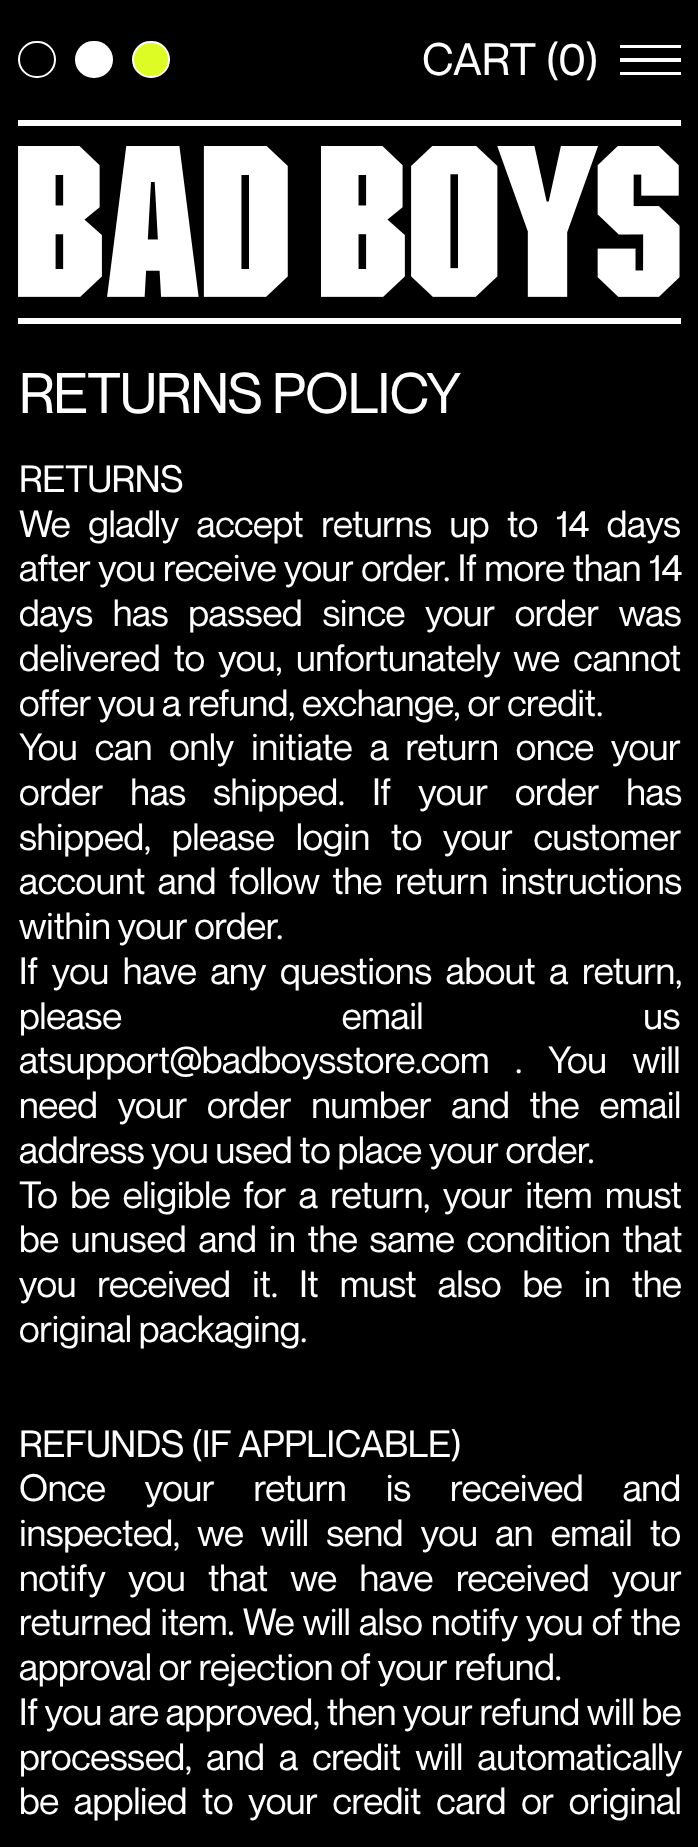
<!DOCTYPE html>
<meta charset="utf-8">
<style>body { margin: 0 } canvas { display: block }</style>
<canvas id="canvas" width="698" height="1847"></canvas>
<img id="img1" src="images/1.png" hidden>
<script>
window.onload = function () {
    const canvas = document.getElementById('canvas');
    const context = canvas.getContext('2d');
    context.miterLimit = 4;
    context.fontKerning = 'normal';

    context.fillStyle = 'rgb(0, 0, 0)';
    context.fillRect(0, 0, 698, 1847);
    context.beginPath();
    context.roundRect(19, 42, 36, 35, 17.5);
    context.strokeStyle = 'rgb(255, 255, 255)';
    context.lineWidth = 2;
    context.stroke();
    context.fillStyle = 'rgb(255, 255, 255)';
    context.beginPath();
    context.roundRect(76, 42, 36, 35, 17.5);
    context.fill();
    context.stroke();
    context.fillStyle = 'rgb(221, 252, 35)';
    context.beginPath();
    context.roundRect(133, 42, 36, 35, 17.5);
    context.fill();
    context.stroke();
    context.fillStyle = 'rgb(255, 255, 255)';
    context.beginPath();
    context.moveTo(681, 45);
    context.lineTo(620, 45);
    context.lineTo(620, 48);
    context.lineTo(681, 48);
    context.closePath();
    context.moveTo(681, 58);
    context.lineTo(620, 58);
    context.lineTo(620, 62);
    context.lineTo(681, 62);
    context.closePath();
    context.moveTo(681, 72);
    context.lineTo(620, 72);
    context.lineTo(620, 75);
    context.lineTo(681, 75);
    context.closePath();
    context.fill();
    context.fillRect(18, 120, 663, 6);
    context.fillRect(18, 318, 663, 6);
    context.drawImage(document.getElementById('img1'), 18, 146, 662, 151);
    context.font = '44.5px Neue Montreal';
    context.fillText('CART (0)', 422, 75);
    context.letterSpacing = '-1.1px';
    context.font = '56px Neue Montreal';
    context.fillText('RETURNS POLICY', 19, 413);
    context.letterSpacing = '-0.35px';
    context.font = '37.25px Neue Montreal';
    context.fillText('RETURNS', 19, 492);
    context.wordSpacing = '10.75px';
    context.fillText('We gladly accept returns up to 14 days', 19, 537);
    context.wordSpacing = '0.75px';
    context.fillText('after you receive your order. If more than 14', 19, 581);
    context.wordSpacing = '13px';
    context.fillText('days has passed since your order was', 19, 626);
    context.wordSpacing = '6.5px';
    context.fillText('delivered to you, unfortunately we cannot', 19, 671);
    context.wordSpacing = '0px';
    context.fillText('offer you a refund, exchange, or credit.', 19, 716);
    context.wordSpacing = '10.25px';
    context.fillText('You can only initiate a return once your', 19, 760);
    context.wordSpacing = '20.25px';
    context.fillText('order has shipped. If your order has', 19, 805);
    context.wordSpacing = '14px';
    context.fillText('shipped, please login to your customer', 19, 850);
    context.wordSpacing = '5.75px';
    context.fillText('account and follow the return instructions', 19, 894);
    context.wordSpacing = '0px';
    context.fillText('within your order.', 19, 939);
    context.wordSpacing = '7px';
    context.fillText('If you have any questions about a return,', 19, 984);
    context.wordSpacing = '213px';
    context.fillText('please email us', 19, 1029);
    context.wordSpacing = '0px';
    context.fillText('atsupport@badboysstore.com', 19, 1073);
    context.wordSpacing = '19px';
    context.fillText('. You will', 515, 1073);
    context.wordSpacing = '13px';
    context.fillText('need your order number and the email', 19, 1118);
    context.wordSpacing = '0px';
    context.fillText('address you used to place your order.', 19, 1163);
    context.wordSpacing = '5.75px';
    context.fillText('To be eligible for a return, your item must', 19, 1208);
    context.wordSpacing = '5px';
    context.fillText('be unused and in the same condition that', 19, 1252);
    context.wordSpacing = '14.25px';
    context.fillText('you received it. It must also be in the', 19, 1297);
    context.wordSpacing = '0px';
    context.fillText('original packaging.', 19, 1342);
    context.fillText('REFUNDS (IF APPLICABLE)', 19, 1457);
    context.wordSpacing = '32.25px';
    context.fillText('Once your return is received and', 19, 1501);
    context.wordSpacing = '10.5px';
    context.fillText('inspected, we will send you an email to', 19, 1546);
    context.wordSpacing = '15.75px';
    context.fillText('notify you that we have received your', 19, 1591);
    context.wordSpacing = '1.5px';
    context.fillText('returned item. We will also notify you of the', 19, 1635);
    context.wordSpacing = '0px';
    context.fillText('approval or rejection of your refund.', 19, 1680);
    context.fillText('If you are approved, then your refund will be', 19, 1725);
    context.wordSpacing = '7.5px';
    context.fillText('processed, and a credit will automatically', 19, 1770);
    context.wordSpacing = '8px';
    context.fillText('be applied to your credit card or original', 19, 1814);
};
</script>
